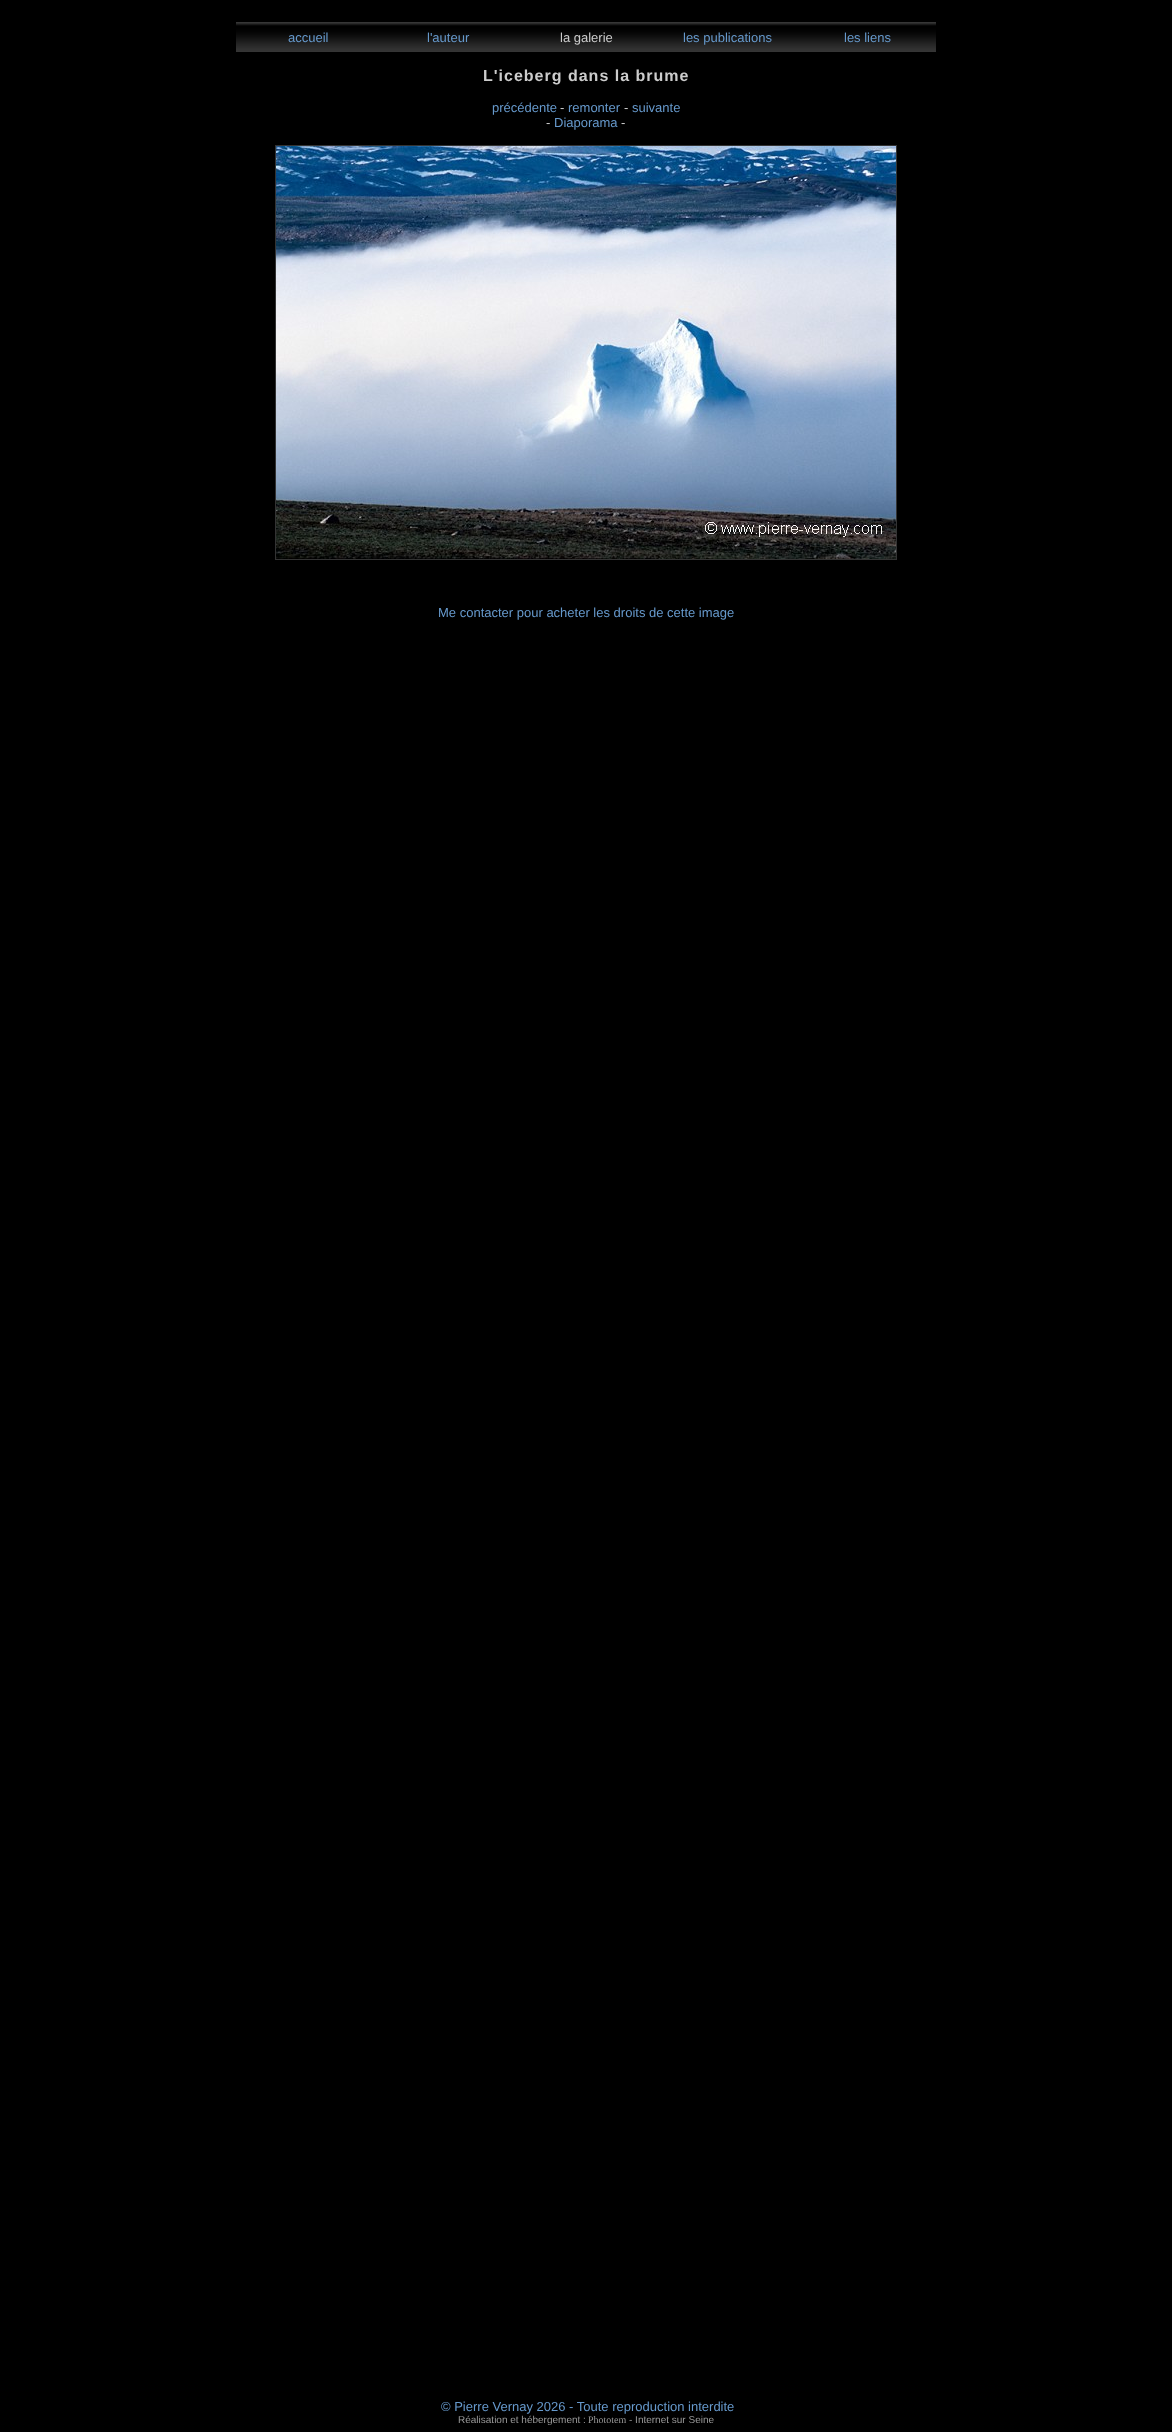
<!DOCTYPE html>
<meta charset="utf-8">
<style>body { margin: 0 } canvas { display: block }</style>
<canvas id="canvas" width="1172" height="2432"></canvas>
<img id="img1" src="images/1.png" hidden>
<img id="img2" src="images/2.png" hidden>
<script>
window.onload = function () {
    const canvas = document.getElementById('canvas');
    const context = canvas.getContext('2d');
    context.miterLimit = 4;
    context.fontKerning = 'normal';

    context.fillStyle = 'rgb(0, 0, 0)';
    context.fillRect(0, 0, 1172, 2432);
    context.drawImage(document.getElementById('img1'), 236, 22, 700, 30);
    context.strokeStyle = 'rgb(51, 51, 51)';
    context.strokeRect(275.5, 145.5, 621, 414);
    context.drawImage(document.getElementById('img2'), 276, 146, 620, 413);
    context.font = '13px Liberation Sans';
    context.fillStyle = 'rgb(102, 153, 204)';
    context.fillText('accueil', 288, 42);
    context.fillText('l\'auteur', 427, 42);
    context.fillStyle = 'rgb(204, 204, 204)';
    context.fillText('la galerie', 560, 42);
    context.fillStyle = 'rgb(102, 153, 204)';
    context.fillText('les publications', 683, 42);
    context.fillText('les liens', 844, 42);
    context.letterSpacing = '1px';
    context.font = 'bold 16px Liberation Sans';
    context.fillStyle = 'rgb(204, 204, 204)';
    context.fillText('L\'iceberg dans la brume', 483, 81);
    context.letterSpacing = '0px';
    context.font = '13px Liberation Sans';
    context.fillStyle = 'rgb(102, 153, 204)';
    context.fillText('précédente', 492, 112);
    context.fillStyle = 'rgb(204, 204, 204)';
    context.fillText('-', 560, 112);
    context.fillStyle = 'rgb(102, 153, 204)';
    context.fillText('remonter', 568, 112);
    context.fillStyle = 'rgb(204, 204, 204)';
    context.fillText('-', 624, 112);
    context.fillStyle = 'rgb(102, 153, 204)';
    context.fillText('suivante', 632, 112);
    context.fillStyle = 'rgb(204, 204, 204)';
    context.fillText('-', 546, 127);
    context.fillStyle = 'rgb(102, 153, 204)';
    context.fillText('Diaporama', 554, 127);
    context.fillStyle = 'rgb(204, 204, 204)';
    context.fillText('-', 621, 127);
    context.fillStyle = 'rgb(102, 153, 204)';
    context.fillText('Me contacter pour acheter les droits de cette image', 438, 617);
    context.fillText('© Pierre Vernay 2026 - Toute reproduction interdite', 441, 2411);
    context.font = '10px Liberation Sans';
    context.fillStyle = 'rgb(153, 153, 153)';
    context.fillText('Réalisation et hébergement :', 458, 2423);
    context.font = '10px Liberation Serif';
    context.fillText('Phototem', 588, 2423);
    context.font = '10px Liberation Sans';
    context.fillText('- Internet sur Seine', 629, 2423);
};
</script>
